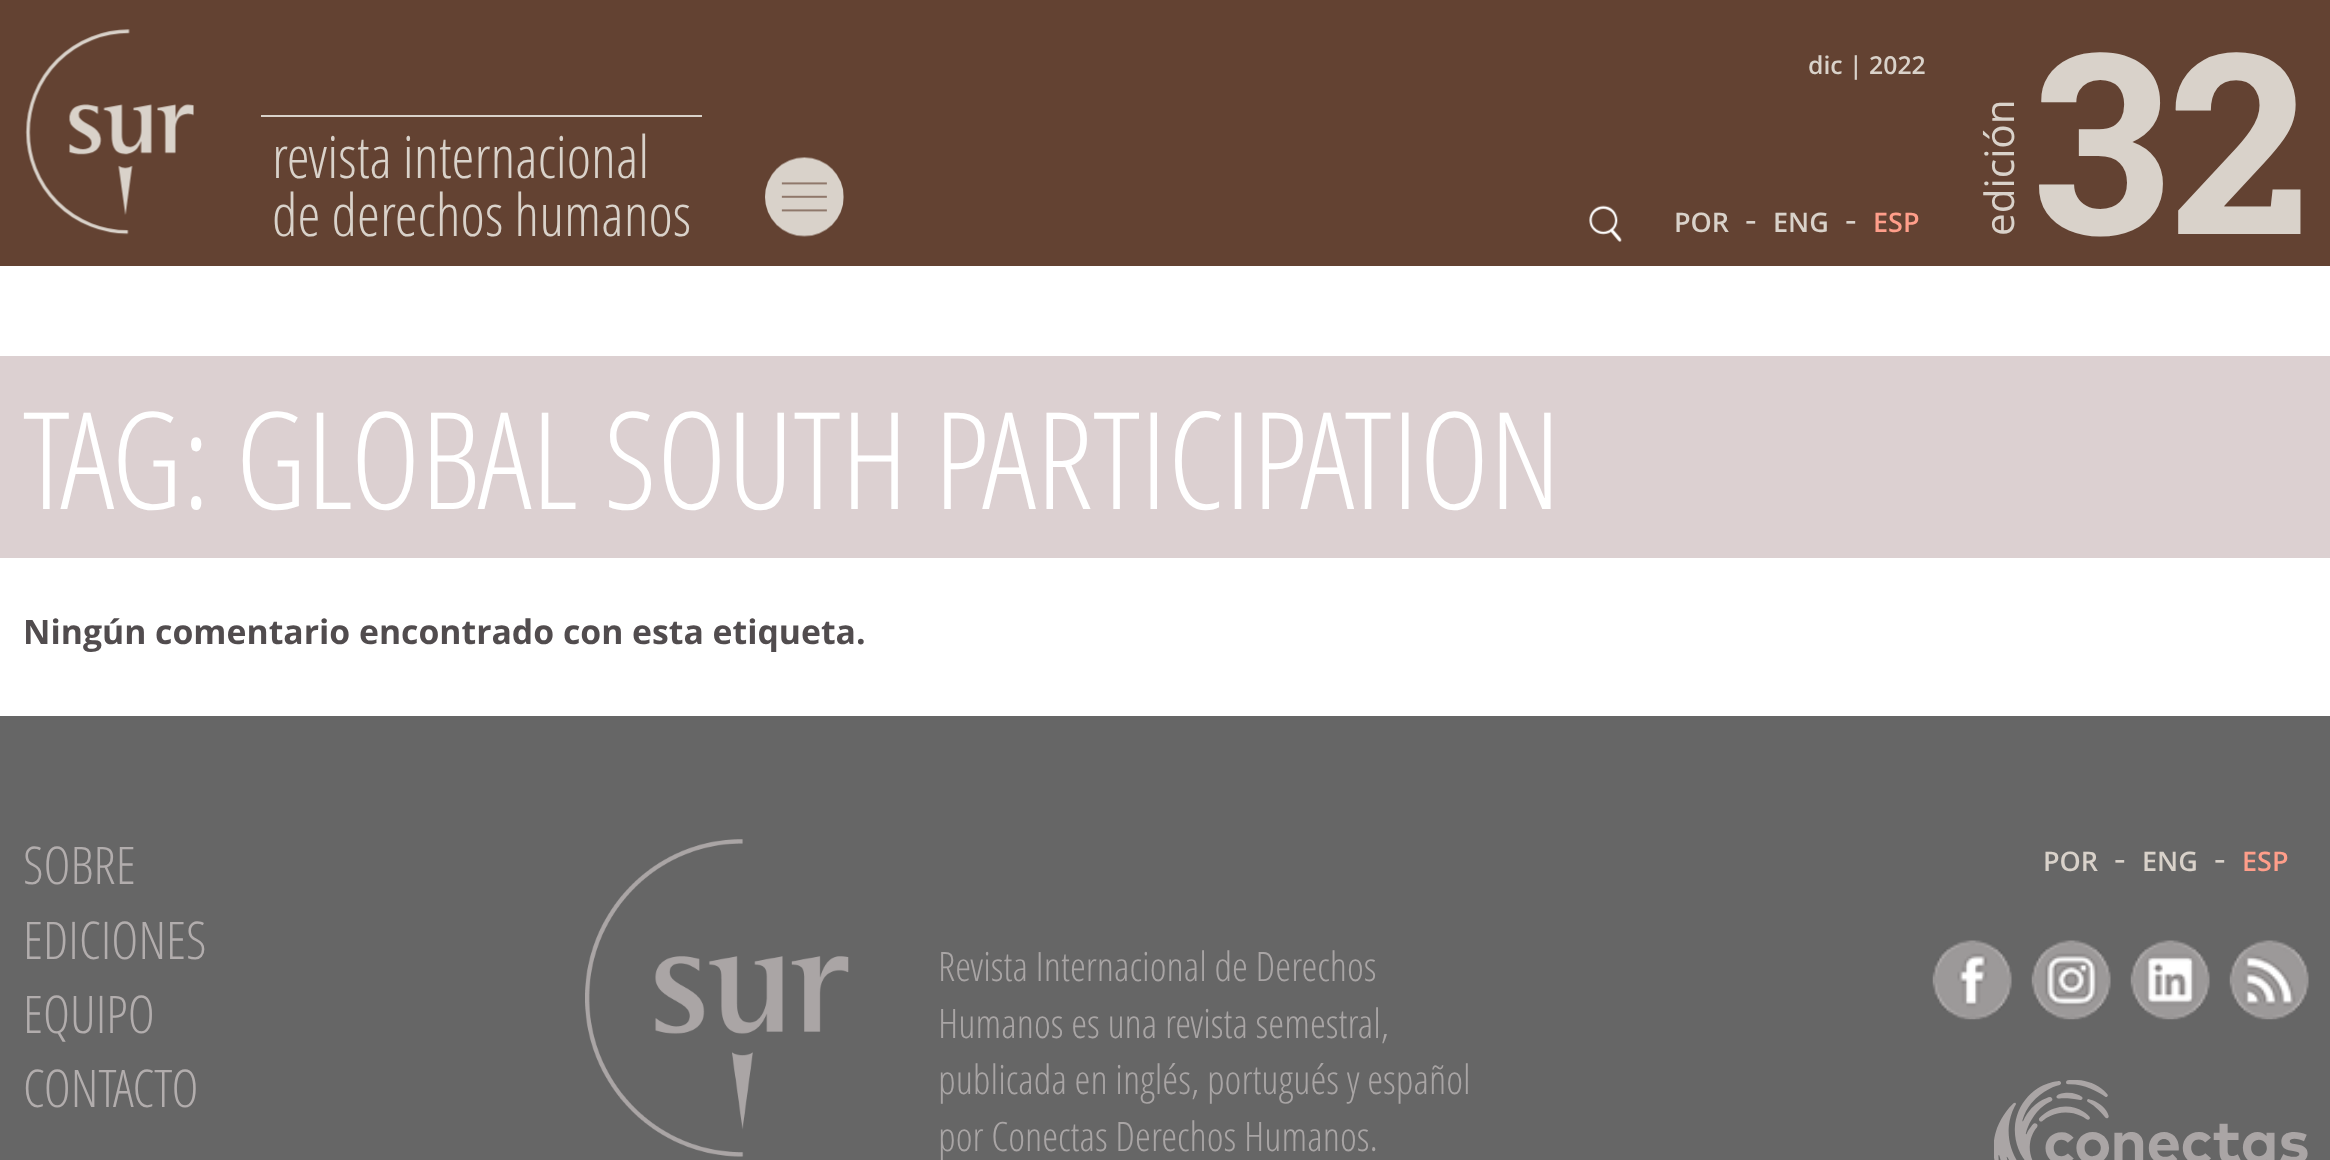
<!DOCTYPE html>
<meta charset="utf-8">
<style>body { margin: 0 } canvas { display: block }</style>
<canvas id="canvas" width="2330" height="1160"></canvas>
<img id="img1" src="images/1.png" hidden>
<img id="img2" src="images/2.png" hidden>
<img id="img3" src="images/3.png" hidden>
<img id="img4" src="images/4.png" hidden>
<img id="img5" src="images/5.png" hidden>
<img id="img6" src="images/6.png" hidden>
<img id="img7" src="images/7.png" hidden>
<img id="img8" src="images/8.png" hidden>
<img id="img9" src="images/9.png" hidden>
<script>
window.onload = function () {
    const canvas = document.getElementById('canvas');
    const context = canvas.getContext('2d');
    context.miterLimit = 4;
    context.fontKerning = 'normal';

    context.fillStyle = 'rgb(255, 255, 255)';
    context.fillRect(0, 0, 2330, 1160);
    context.fillStyle = 'rgb(99, 66, 50)';
    context.fillRect(0, 0, 2330, 266);
    context.drawImage(document.getElementById('img1'), 25, 29, 169, 206);
    context.fillStyle = 'rgb(217, 210, 202)';
    context.fillRect(261, 115, 441, 2);
    context.drawImage(document.getElementById('img2'), 765, 157, 79, 80);
    context.drawImage(document.getElementById('img3'), 1589, 205, 33, 37);
    context.fillStyle = 'rgb(220, 208, 209)';
    context.fillRect(0, 356, 2330, 202);
    context.fillStyle = 'rgb(102, 102, 102)';
    context.fillRect(0, 716, 2330, 444);
    context.drawImage(document.getElementById('img4'), 585, 839, 264, 318);
    context.drawImage(document.getElementById('img5'), 1932, 940, 80, 80);
    context.drawImage(document.getElementById('img6'), 2031, 940, 80, 80);
    context.drawImage(document.getElementById('img7'), 2130, 940, 80, 80);
    context.drawImage(document.getElementById('img8'), 2229, 940, 80, 80);
    context.drawImage(document.getElementById('img9'), 1994, 1080, 314, 80);
    context.font = '600 24.75px Open Sans';
    context.fillStyle = 'rgb(217, 210, 202)';
    context.fillText('dic | 2022', 1808, 74);
    context.font = '40.5px Open Sans';
    context.save();
    context.translate(2014, 236);
    context.rotate(-90 * Math.PI / 180);
    context.fillText('edición', 0, 0);
    context.restore();
    context.font = 'bold 252px Roboto Slab';
    context.fillText('32', 2032, 234);
    context.font = '300 58.5px Open Sans';
    context.fillText('revista internacional', 272, 178);
    context.fillText('de derechos humanos', 272, 236);
    context.font = '600 27px Open Sans';
    context.fillText('POR', 1674, 232);
    context.font = '36px Open Sans';
    context.fillText('-', 1745, 232);
    context.font = '600 27px Open Sans';
    context.fillText('ENG', 1773, 232);
    context.font = '36px Open Sans';
    context.fillText('-', 1845, 232);
    context.font = '600 27px Open Sans';
    context.fillStyle = 'rgb(255, 158, 138)';
    context.fillText('ESP', 1873, 232);
    context.font = '300 135px Open Sans';
    context.fillStyle = 'rgb(255, 255, 255)';
    context.fillText('TAG: GLOBAL SOUTH PARTICIPATION', 23, 509);
    context.font = 'bold 33.75px Open Sans';
    context.fillStyle = 'rgb(81, 76, 78)';
    context.fillText('Ningún comentario encontrado con esta etiqueta.', 23, 644);
    context.font = '300 52px Open Sans';
    context.fillStyle = 'rgb(178, 173, 173)';
    context.fillText('SOBRE', 23, 884);
    context.fillText('EDICIONES', 23, 959);
    context.fillText('EQUIPO', 23, 1033);
    context.fillText('CONTACTO', 23, 1107);
    context.font = '600 27px Open Sans';
    context.fillStyle = 'rgb(217, 210, 202)';
    context.fillText('POR', 2043, 871);
    context.font = '36px Open Sans';
    context.fillText('-', 2114, 871);
    context.font = '600 27px Open Sans';
    context.fillText('ENG', 2142, 871);
    context.font = '36px Open Sans';
    context.fillText('-', 2214, 871);
    context.font = '600 27px Open Sans';
    context.fillStyle = 'rgb(255, 158, 138)';
    context.fillText('ESP', 2242, 871);
    context.font = '300 40.5px Open Sans';
    context.fillStyle = 'rgb(169, 165, 165)';
    context.fillText('Revista Internacional de Derechos', 938, 981);
    context.fillText('Humanos es una revista semestral,', 938, 1038);
    context.fillText('publicada en inglés, portugués y español', 938, 1094);
    context.fillText('por Conectas Derechos Humanos.', 938, 1151);
};
</script>
